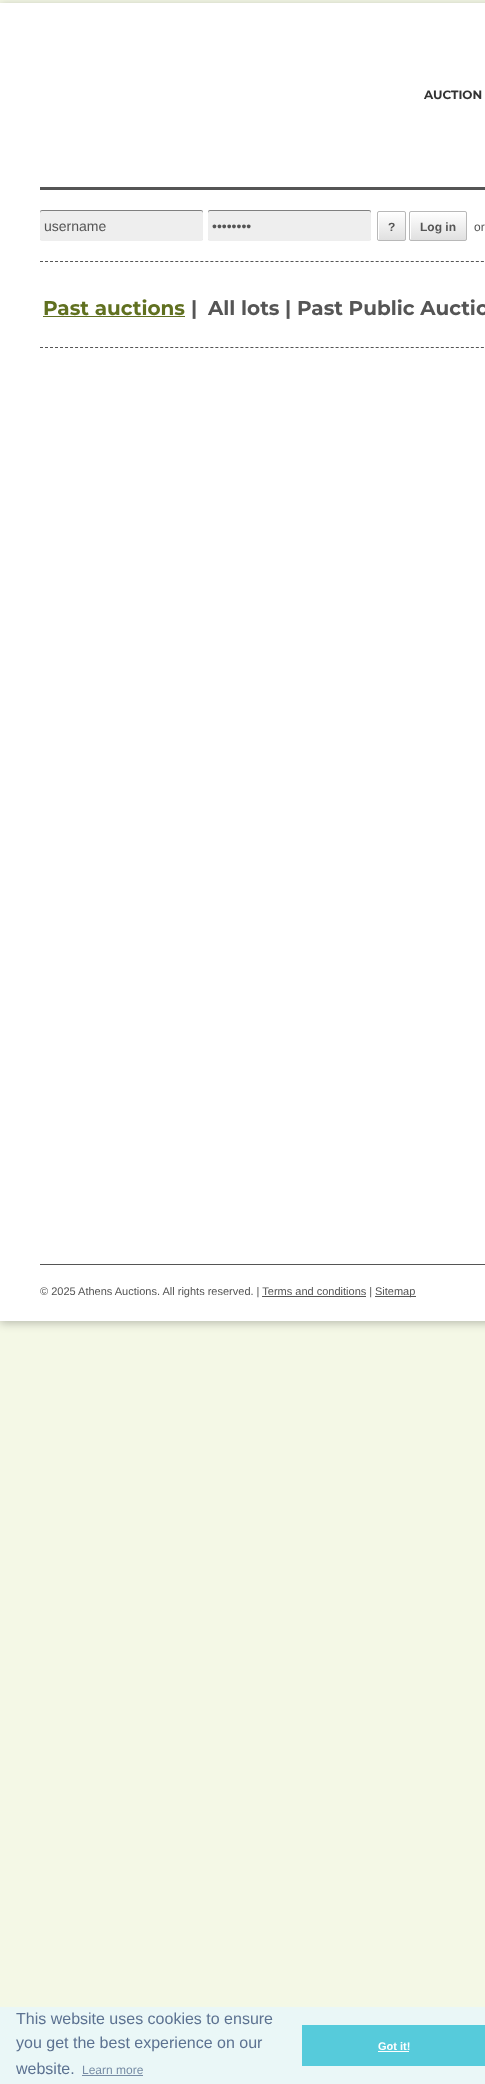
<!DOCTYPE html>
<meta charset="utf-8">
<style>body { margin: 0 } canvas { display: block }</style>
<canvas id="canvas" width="485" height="2084"></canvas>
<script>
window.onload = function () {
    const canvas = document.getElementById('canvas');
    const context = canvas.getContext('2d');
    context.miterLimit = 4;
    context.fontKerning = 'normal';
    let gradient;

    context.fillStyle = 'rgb(244, 248, 230)';
    context.fillRect(0, 0, 485, 2084);
    context.fillStyle = 'rgba(0, 0, 0, 0.25)';
    context.filter = 'blur(5px)';
    context.beginPath();
    context.rect(0, 5, 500, 1318);
    context.fill();
    context.filter = 'none';
    context.fillStyle = 'rgb(255, 255, 255)';
    context.fillRect(0, 3, 485, 1318);
    context.fillStyle = 'rgb(85, 85, 85)';
    context.fillRect(40, 187, 445, 3);
    context.fillStyle = 'rgba(0, 0, 0, 0.5)';
    context.filter = 'blur(0.5px)';
    context.beginPath();
    context.roundRect(40, 210, 163, 30, 2);
    context.fill();
    context.filter = 'none';
    context.fillStyle = 'rgb(238, 238, 238)';
    context.beginPath();
    context.roundRect(40, 211, 163, 30, 2);
    context.fill();
    context.fillStyle = 'rgba(0, 0, 0, 0.5)';
    context.filter = 'blur(0.5px)';
    context.beginPath();
    context.roundRect(208, 210, 163, 30, 2);
    context.fill();
    context.filter = 'none';
    context.fillStyle = 'rgb(238, 238, 238)';
    context.beginPath();
    context.roundRect(208, 211, 163, 30, 2);
    context.fill();
    context.save();
    context.beginPath();
    context.roundRect(377, 211, 29, 30, 2);
    context.clip();
    gradient = context.createLinearGradient(378, 212, 378, 240);
    gradient.addColorStop(0, 'rgb(255, 255, 255)');
    gradient.addColorStop(1, 'rgb(224, 224, 224)');
    context.fillStyle = gradient;
    context.fillRect(377, 212, 29, 28);
    context.restore();
    context.fillStyle = 'rgb(255, 255, 255)';
    context.beginPath();
    context.moveTo(380, 213);
    context.lineTo(405, 213);
    context.bezierCurveTo(405, 212.5, 404.5, 212, 404, 212);
    context.lineTo(379, 212);
    context.bezierCurveTo(378.5, 212, 378, 212.5, 378, 213);
    context.lineTo(378, 239);
    context.bezierCurveTo(378, 239.5, 378.5, 240, 379, 240);
    context.lineTo(379, 214);
    context.closePath();
    context.fill();
    context.beginPath();
    context.roundRect(377.5, 211.5, 28, 29, 1.5);
    context.strokeStyle = 'rgb(184, 184, 184)';
    context.stroke();
    context.save();
    context.beginPath();
    context.roundRect(409, 211, 58, 30, 2);
    context.clip();
    gradient = context.createLinearGradient(410, 212, 410, 240);
    gradient.addColorStop(0, 'rgb(255, 255, 255)');
    gradient.addColorStop(1, 'rgb(224, 224, 224)');
    context.fillStyle = gradient;
    context.fillRect(409, 212, 58, 28);
    context.restore();
    context.beginPath();
    context.moveTo(412, 213);
    context.lineTo(466, 213);
    context.lineTo(465, 212);
    context.lineTo(420, 212);
    context.bezierCurveTo(407, 212, 410, 210, 410, 222);
    context.bezierCurveTo(410, 225, 409, 240, 411, 240);
    context.lineTo(411, 213);
    context.closePath();
    context.fill();
    context.beginPath();
    context.roundRect(409.5, 211.5, 57, 29, 1.5);
    context.stroke();
    context.beginPath();
    context.moveTo(40, 261.5);
    context.lineTo(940, 261.5);
    context.strokeStyle = 'rgb(85, 85, 85)';
    context.setLineDash([3, 2.01]);
    context.stroke();
    context.fillStyle = 'rgb(96, 112, 32)';
    context.fillRect(43, 316, 142, 1);
    context.beginPath();
    context.moveTo(40, 347.5);
    context.lineTo(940, 347.5);
    context.stroke();
    context.fillStyle = 'rgb(85, 85, 85)';
    context.fillRect(40, 1264, 445, 1);
    context.fillRect(375, 1296, 41, 1);
    context.fillRect(262, 1296, 104, 1);
    context.fillStyle = 'rgb(234, 247, 247)';
    context.fillRect(0, 2007, 485, 77);
    context.fillStyle = 'rgb(120, 141, 165)';
    context.fillRect(82, 2075, 61, 1);
    context.fillStyle = 'rgb(86, 203, 219)';
    context.fillRect(302, 2025, 183, 41);
    context.fillStyle = 'rgb(255, 255, 255)';
    context.fillRect(378, 2051, 31, 1);
    context.font = 'bold 12px Montserrat';
    context.fillStyle = 'rgb(51, 51, 51)';
    context.fillText('AUCTION', 424, 99);
    context.font = '14px Liberation Sans';
    context.fillStyle = 'rgb(85, 85, 85)';
    context.fillText('username', 44, 231);
    context.fillText('••••••••', 212, 231);
    context.font = 'bold 12px Liberation Sans';
    context.fillText('?', 388, 231);
    context.fillText('Log in', 420, 231);
    context.font = '12px Liberation Sans';
    context.fillText('or', 474, 231);
    context.font = 'bold 20px Montserrat';
    context.fillStyle = 'rgb(96, 112, 32)';
    context.fillText('Past auctions', 43, 315);
    context.fillStyle = 'rgb(85, 85, 85)';
    context.fillText('|', 191, 315);
    context.fillText('All lots | Past Public Auctio', 208, 315);
    context.font = '11px Liberation Sans';
    context.fillText('© 2025 Athens Auctions. All rights reserved. | Terms and conditions |', 40, 1295);
    context.fillText('Sitemap', 375, 1295);
    context.font = '16px Liberation Sans';
    context.fillStyle = 'rgb(92, 114, 145)';
    context.fillText('This website uses cookies to ensure', 16, 2024);
    context.fillText('you get the best experience on our', 16, 2048);
    context.fillText('website.', 16, 2074);
    context.font = '12px Liberation Sans';
    context.fillStyle = 'rgb(120, 141, 165)';
    context.fillText('Learn more', 82, 2074);
    context.font = 'bold 11px Liberation Sans';
    context.fillStyle = 'rgb(255, 255, 255)';
    context.fillText('Got it!', 378, 2050);
};
</script>
